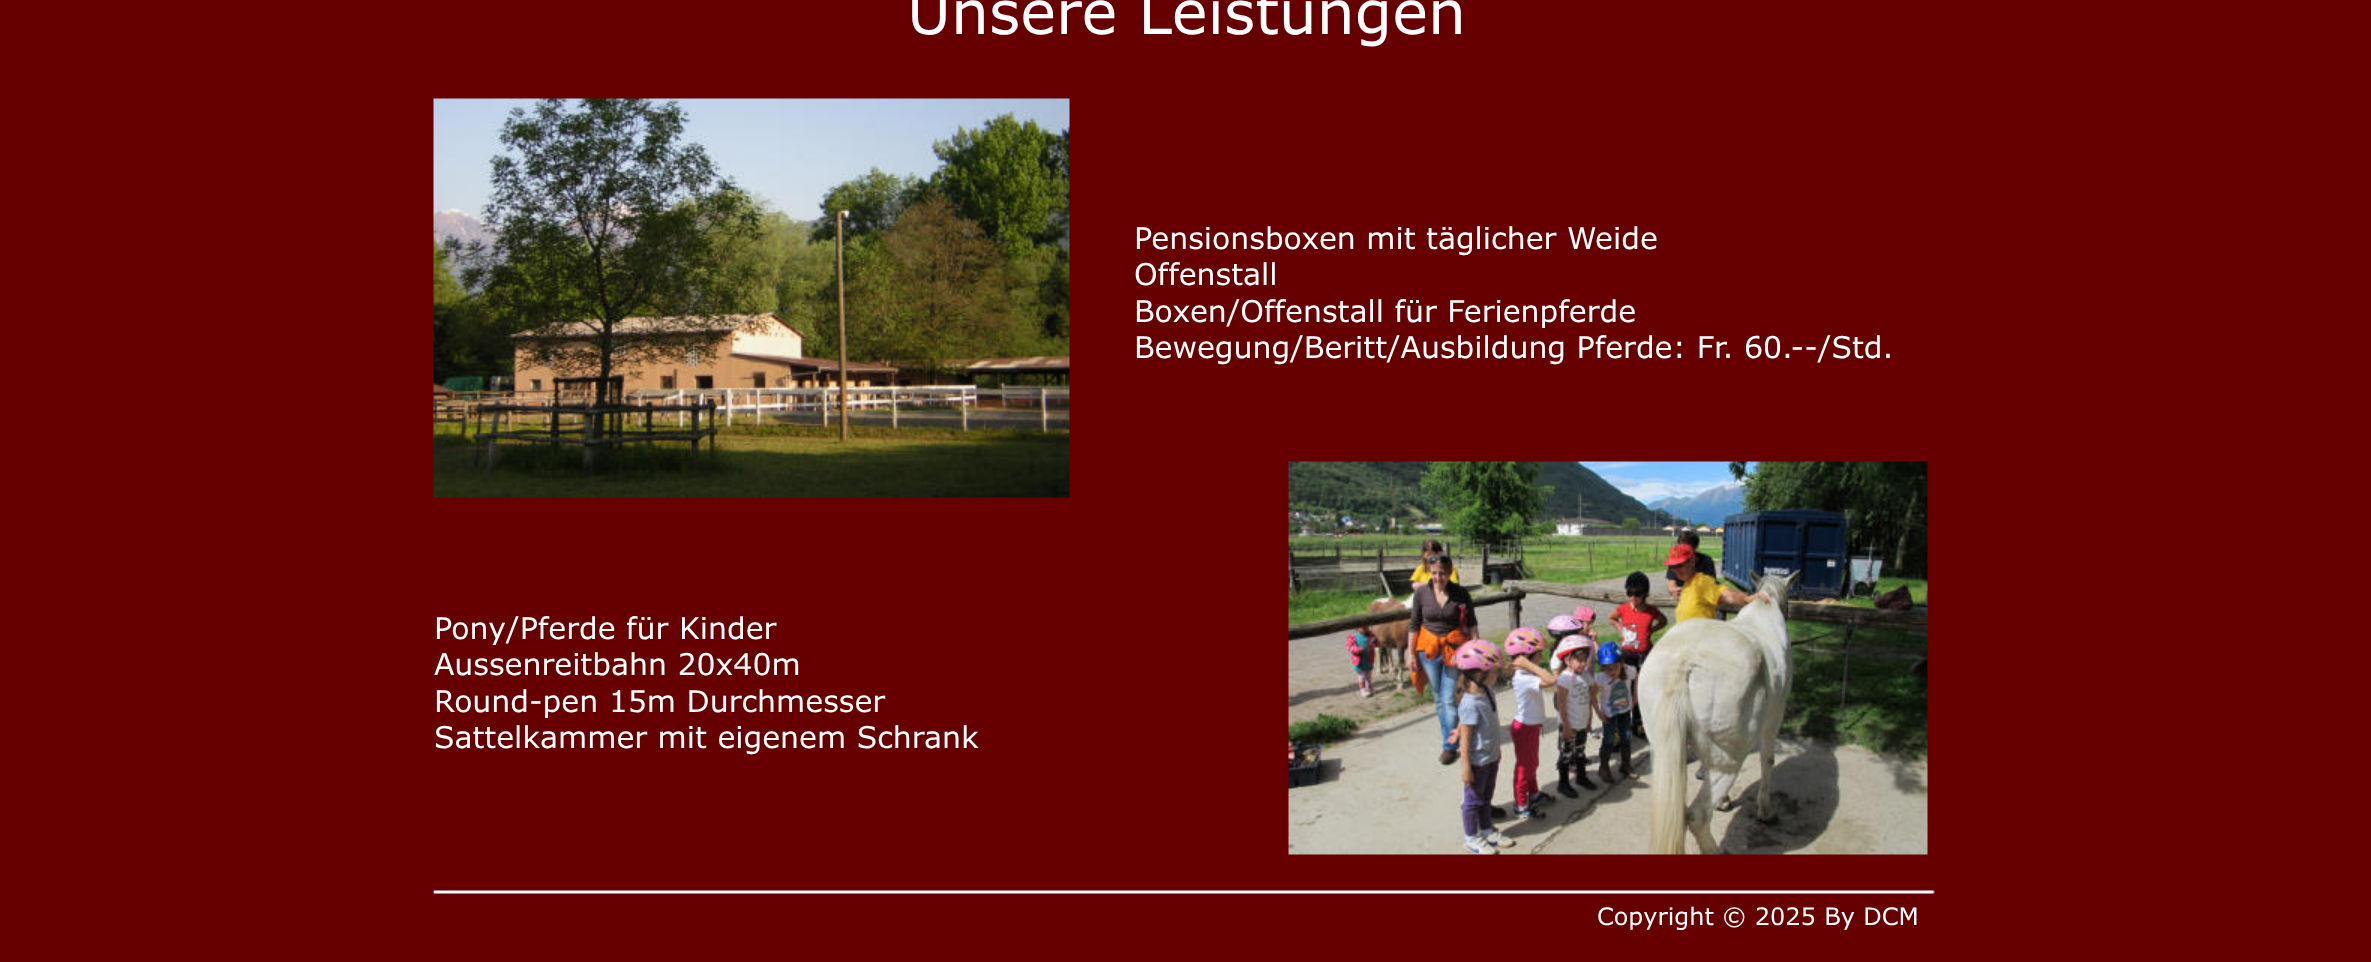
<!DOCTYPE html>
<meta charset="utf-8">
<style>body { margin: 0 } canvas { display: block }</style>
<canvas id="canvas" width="2371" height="962"></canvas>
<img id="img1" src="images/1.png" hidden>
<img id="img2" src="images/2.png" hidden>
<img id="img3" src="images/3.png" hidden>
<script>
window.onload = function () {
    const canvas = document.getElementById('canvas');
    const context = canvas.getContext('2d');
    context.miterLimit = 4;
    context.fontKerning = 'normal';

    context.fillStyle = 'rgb(102, 0, 0)';
    context.fillRect(0, 0, 2371, 962);
    context.drawImage(document.getElementById('img1'), 433, 98, 637, 400);
    context.drawImage(document.getElementById('img2'), 1288, 461, 640, 394);
    context.drawImage(document.getElementById('img3'), 433, 890, 1502, 4);
    context.font = '60px Verdana';
    context.fillStyle = 'rgb(255, 255, 255)';
    context.fillText('Unsere Leistungen', 907, 34);
    context.font = '30px Verdana';
    context.fillText('Pensionsboxen mit täglicher Weide', 1134, 249);
    context.fillText('Offenstall', 1134, 285);
    context.fillText('Boxen/Offenstall für Ferienpferde', 1134, 322);
    context.fillText('Bewegung/Beritt/Ausbildung Pferde: Fr. 60.--/Std.', 1134, 358);
    context.fillText('Pony/Pferde für Kinder', 434, 639);
    context.fillText('Aussenreitbahn 20x40m', 434, 675);
    context.fillText('Round-pen 15m Durchmesser', 434, 712);
    context.fillText('Sattelkammer mit eigenem Schrank', 434, 748);
    context.font = '24px Verdana';
    context.fillText('Copyright © 2025 By DCM', 1597, 925);
};
</script>
